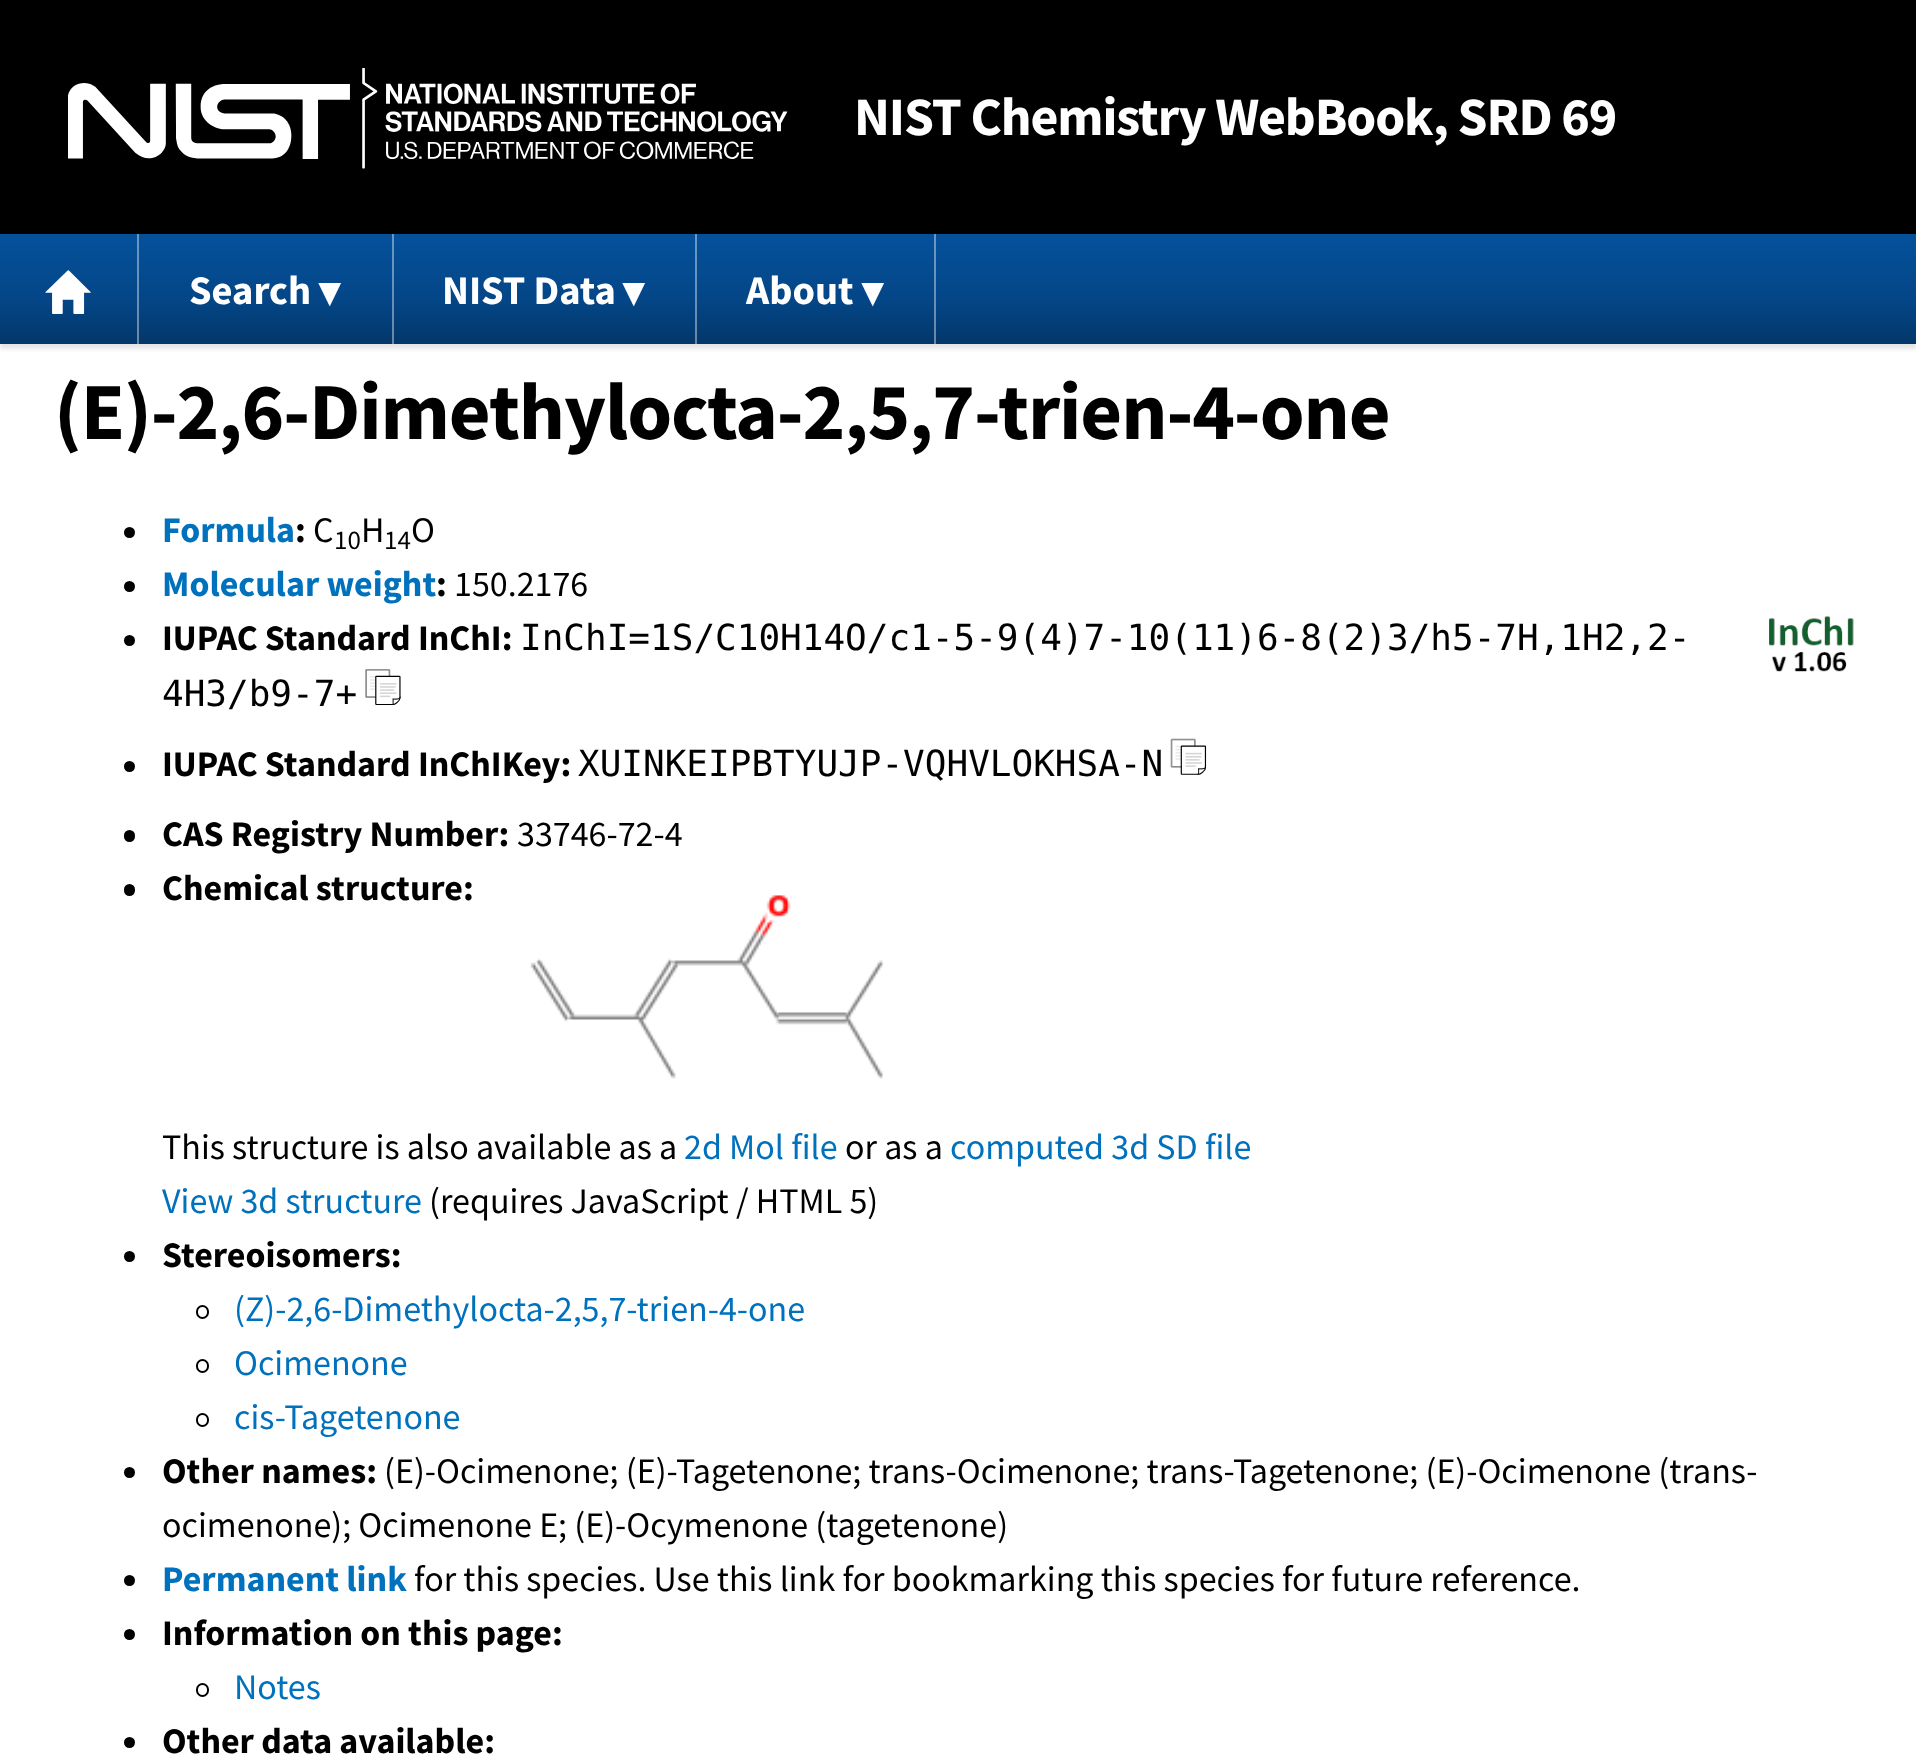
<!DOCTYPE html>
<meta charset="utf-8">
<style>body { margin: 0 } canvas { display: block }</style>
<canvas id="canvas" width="1916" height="1762"></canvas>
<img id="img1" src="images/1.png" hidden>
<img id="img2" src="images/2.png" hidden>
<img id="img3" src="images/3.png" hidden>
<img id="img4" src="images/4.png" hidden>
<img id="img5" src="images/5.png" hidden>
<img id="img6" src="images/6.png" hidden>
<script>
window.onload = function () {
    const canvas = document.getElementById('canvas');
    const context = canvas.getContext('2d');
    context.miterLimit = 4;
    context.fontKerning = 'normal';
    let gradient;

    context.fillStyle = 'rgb(255, 255, 255)';
    context.fillRect(0, 0, 1916, 1762);
    context.fillStyle = 'rgba(0, 0, 0, 0.1)';
    context.filter = 'blur(2px)';
    context.beginPath();
    context.rect(0, 239, 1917, 110);
    context.fill();
    context.filter = 'none';
    context.fillStyle = 'rgb(0, 0, 0)';
    context.fillRect(0, 0, 1916, 234);
    context.drawImage(document.getElementById('img1'), 68, 68, 720, 101);
    gradient = context.createLinearGradient(959, 234, 959, 344);
    gradient.addColorStop(0, 'rgb(4, 81, 155)');
    gradient.addColorStop(0.6, 'rgb(4, 70, 135)');
    gradient.addColorStop(1, 'rgb(3, 55, 105)');
    context.fillStyle = gradient;
    context.fillRect(0, 234, 1916, 110);
    gradient = context.createLinearGradient(959, 234, 959, 344);
    gradient.addColorStop(0, 'rgb(104, 151, 195)');
    gradient.addColorStop(0.6, 'rgb(104, 144, 183)');
    gradient.addColorStop(1, 'rgb(104, 135, 165)');
    context.fillStyle = gradient;
    context.fillRect(934, 234, 2, 110);
    context.fillRect(695, 234, 2, 110);
    context.fillRect(392, 234, 2, 110);
    context.fillRect(137, 234, 2, 110);
    context.drawImage(document.getElementById('img2'), 45, 270, 46, 44);
    context.fillStyle = 'rgb(0, 0, 0)';
    context.beginPath();
    context.arc(129.5, 532.5, 5.5, 0, 2 * Math.PI);
    context.fill();
    context.beginPath();
    context.arc(129.5, 586.5, 5.5, 0, 2 * Math.PI);
    context.fill();
    context.beginPath();
    context.arc(129.5, 640.5, 5.5, 0, 2 * Math.PI);
    context.fill();
    context.drawImage(document.getElementById('img3'), 365, 669, 36, 36);
    context.drawImage(document.getElementById('img4'), 1769, 616, 85, 56);
    context.beginPath();
    context.arc(129.5, 766.5, 5.5, 0, 2 * Math.PI);
    context.fill();
    context.drawImage(document.getElementById('img5'), 1170, 738, 37, 37);
    context.beginPath();
    context.roundRect(124, 830, 11, 12, 5.5);
    context.fill();
    context.beginPath();
    context.roundRect(124, 884, 11, 12, 5.5);
    context.fill();
    context.drawImage(document.getElementById('img6'), 530, 895, 354, 184);
    context.beginPath();
    context.arc(129.5, 1256.5, 5.5, 0, 2 * Math.PI);
    context.fill();
    context.beginPath();
    context.roundRect(197, 1306, 11, 12, 5.5);
    context.strokeStyle = 'rgb(0, 0, 0)';
    context.lineWidth = 2;
    context.stroke();
    context.beginPath();
    context.roundRect(197, 1360, 11, 12, 5.5);
    context.stroke();
    context.beginPath();
    context.roundRect(197, 1414, 11, 12, 5.5);
    context.stroke();
    context.beginPath();
    context.arc(129.5, 1472.5, 5.5, 0, 2 * Math.PI);
    context.fill();
    context.beginPath();
    context.arc(129.5, 1580.5, 5.5, 0, 2 * Math.PI);
    context.fill();
    context.beginPath();
    context.arc(129.5, 1634.5, 5.5, 0, 2 * Math.PI);
    context.fill();
    context.beginPath();
    context.roundRect(197, 1684, 11, 12, 5.5);
    context.stroke();
    context.beginPath();
    context.arc(129.5, 1742.5, 5.5, 0, 2 * Math.PI);
    context.fill();
    context.letterSpacing = '-1.1px';
    context.font = 'bold 54px Source Sans Pro';
    context.fillStyle = 'rgb(255, 255, 255)';
    context.fillText('NIST Chemistry WebBook, SRD 69', 854, 135);
    context.letterSpacing = '0px';
    context.font = 'bold 40.5px Source Sans Pro';
    context.fillText('Search', 189, 304);
    context.font = 'bold 29px Source Sans Pro';
    context.fillText('▼', 317, 304);
    context.font = 'bold 40.5px Source Sans Pro';
    context.fillText('NIST Data', 442, 304);
    context.font = 'bold 29px Source Sans Pro';
    context.fillText('▼', 621, 304);
    context.font = 'bold 40.5px Source Sans Pro';
    context.fillText('About', 746, 304);
    context.font = 'bold 29px Source Sans Pro';
    context.fillText('▼', 860, 304);
    context.letterSpacing = '-1.1px';
    context.font = 'bold 81px Source Sans Pro';
    context.fillStyle = 'rgb(0, 0, 0)';
    context.fillText('(E)-2,6-Dimethylocta-2,5,7-trien-4-one', 54, 439);
    context.letterSpacing = '0px';
    context.font = 'bold 36px Source Sans Pro';
    context.fillStyle = 'rgb(0, 113, 188)';
    context.fillText('Formula', 162, 542);
    context.fillStyle = 'rgb(0, 0, 0)';
    context.fillText(':', 295, 542);
    context.font = '36px Source Sans Pro';
    context.fillText('C', 313, 542);
    context.font = '27px Source Sans Pro';
    context.fillText('10', 334, 549);
    context.font = '36px Source Sans Pro';
    context.fillText('H', 361, 542);
    context.font = '27px Source Sans Pro';
    context.fillText('14', 384, 549);
    context.font = '36px Source Sans Pro';
    context.fillText('O', 411, 542);
    context.font = 'bold 36px Source Sans Pro';
    context.fillStyle = 'rgb(0, 113, 188)';
    context.fillText('Molecular weight', 162, 596);
    context.fillStyle = 'rgb(0, 0, 0)';
    context.fillText(':', 436, 596);
    context.font = '36px Source Sans Pro';
    context.fillText('150.2176', 454, 596);
    context.font = 'bold 36px Source Sans Pro';
    context.fillText('IUPAC Standard InChI:', 162, 650);
    context.font = '36px DejaVu Sans Mono';
    context.fillText('InChI=1S/C10H14O/c1-5-9(4)7-10(11)6-8(2)3/h5-7H,1H2,2-', 520, 650);
    context.fillText('4H3/b9-7+', 162, 706);
    context.font = 'bold 36px Source Sans Pro';
    context.fillText('IUPAC Standard InChIKey:', 162, 776);
    context.font = '36px DejaVu Sans Mono';
    context.fillText('XUINKEIPBTYUJP-VQHVLOKHSA-N', 578, 776);
    context.font = 'bold 36px Source Sans Pro';
    context.fillText('CAS Registry Number:', 162, 846);
    context.font = '36px Source Sans Pro';
    context.fillText('33746-72-4', 517, 846);
    context.font = 'bold 36px Source Sans Pro';
    context.fillText('Chemical structure:', 162, 900);
    context.font = '36px Source Sans Pro';
    context.fillText('This structure is also available as a', 162, 1159);
    context.fillStyle = 'rgb(0, 113, 188)';
    context.fillText('2d Mol file', 684, 1159);
    context.fillStyle = 'rgb(0, 0, 0)';
    context.fillText('or as a', 845, 1159);
    context.fillStyle = 'rgb(0, 113, 188)';
    context.fillText('computed 3d SD file', 950, 1159);
    context.fillText('View 3d structure', 162, 1213);
    context.fillStyle = 'rgb(0, 0, 0)';
    context.fillText('(requires JavaScript / HTML 5)', 429, 1213);
    context.font = 'bold 36px Source Sans Pro';
    context.fillText('Stereoisomers:', 162, 1267);
    context.font = '36px Source Sans Pro';
    context.fillStyle = 'rgb(0, 113, 188)';
    context.fillText('(Z)-2,6-Dimethylocta-2,5,7-trien-4-one', 234, 1321);
    context.fillText('Ocimenone', 234, 1375);
    context.fillText('cis-Tagetenone', 234, 1429);
    context.font = 'bold 36px Source Sans Pro';
    context.fillStyle = 'rgb(0, 0, 0)';
    context.fillText('Other names:', 162, 1483);
    context.font = '36px Source Sans Pro';
    context.fillText('(E)-Ocimenone; (E)-Tagetenone; trans-Ocimenone; trans-Tagetenone; (E)-Ocimenone (trans-', 384, 1483);
    context.fillText('ocimenone); Ocimenone E; (E)-Ocymenone (tagetenone)', 162, 1537);
    context.font = 'bold 36px Source Sans Pro';
    context.fillStyle = 'rgb(0, 113, 188)';
    context.fillText('Permanent link', 162, 1591);
    context.font = '36px Source Sans Pro';
    context.fillStyle = 'rgb(0, 0, 0)';
    context.fillText('for this species. Use this link for bookmarking this species for future reference.', 414, 1591);
    context.font = 'bold 36px Source Sans Pro';
    context.fillText('Information on this page:', 162, 1645);
    context.font = '36px Source Sans Pro';
    context.fillStyle = 'rgb(0, 113, 188)';
    context.fillText('Notes', 234, 1699);
    context.font = 'bold 36px Source Sans Pro';
    context.fillStyle = 'rgb(0, 0, 0)';
    context.fillText('Other data available:', 162, 1753);
};
</script>
